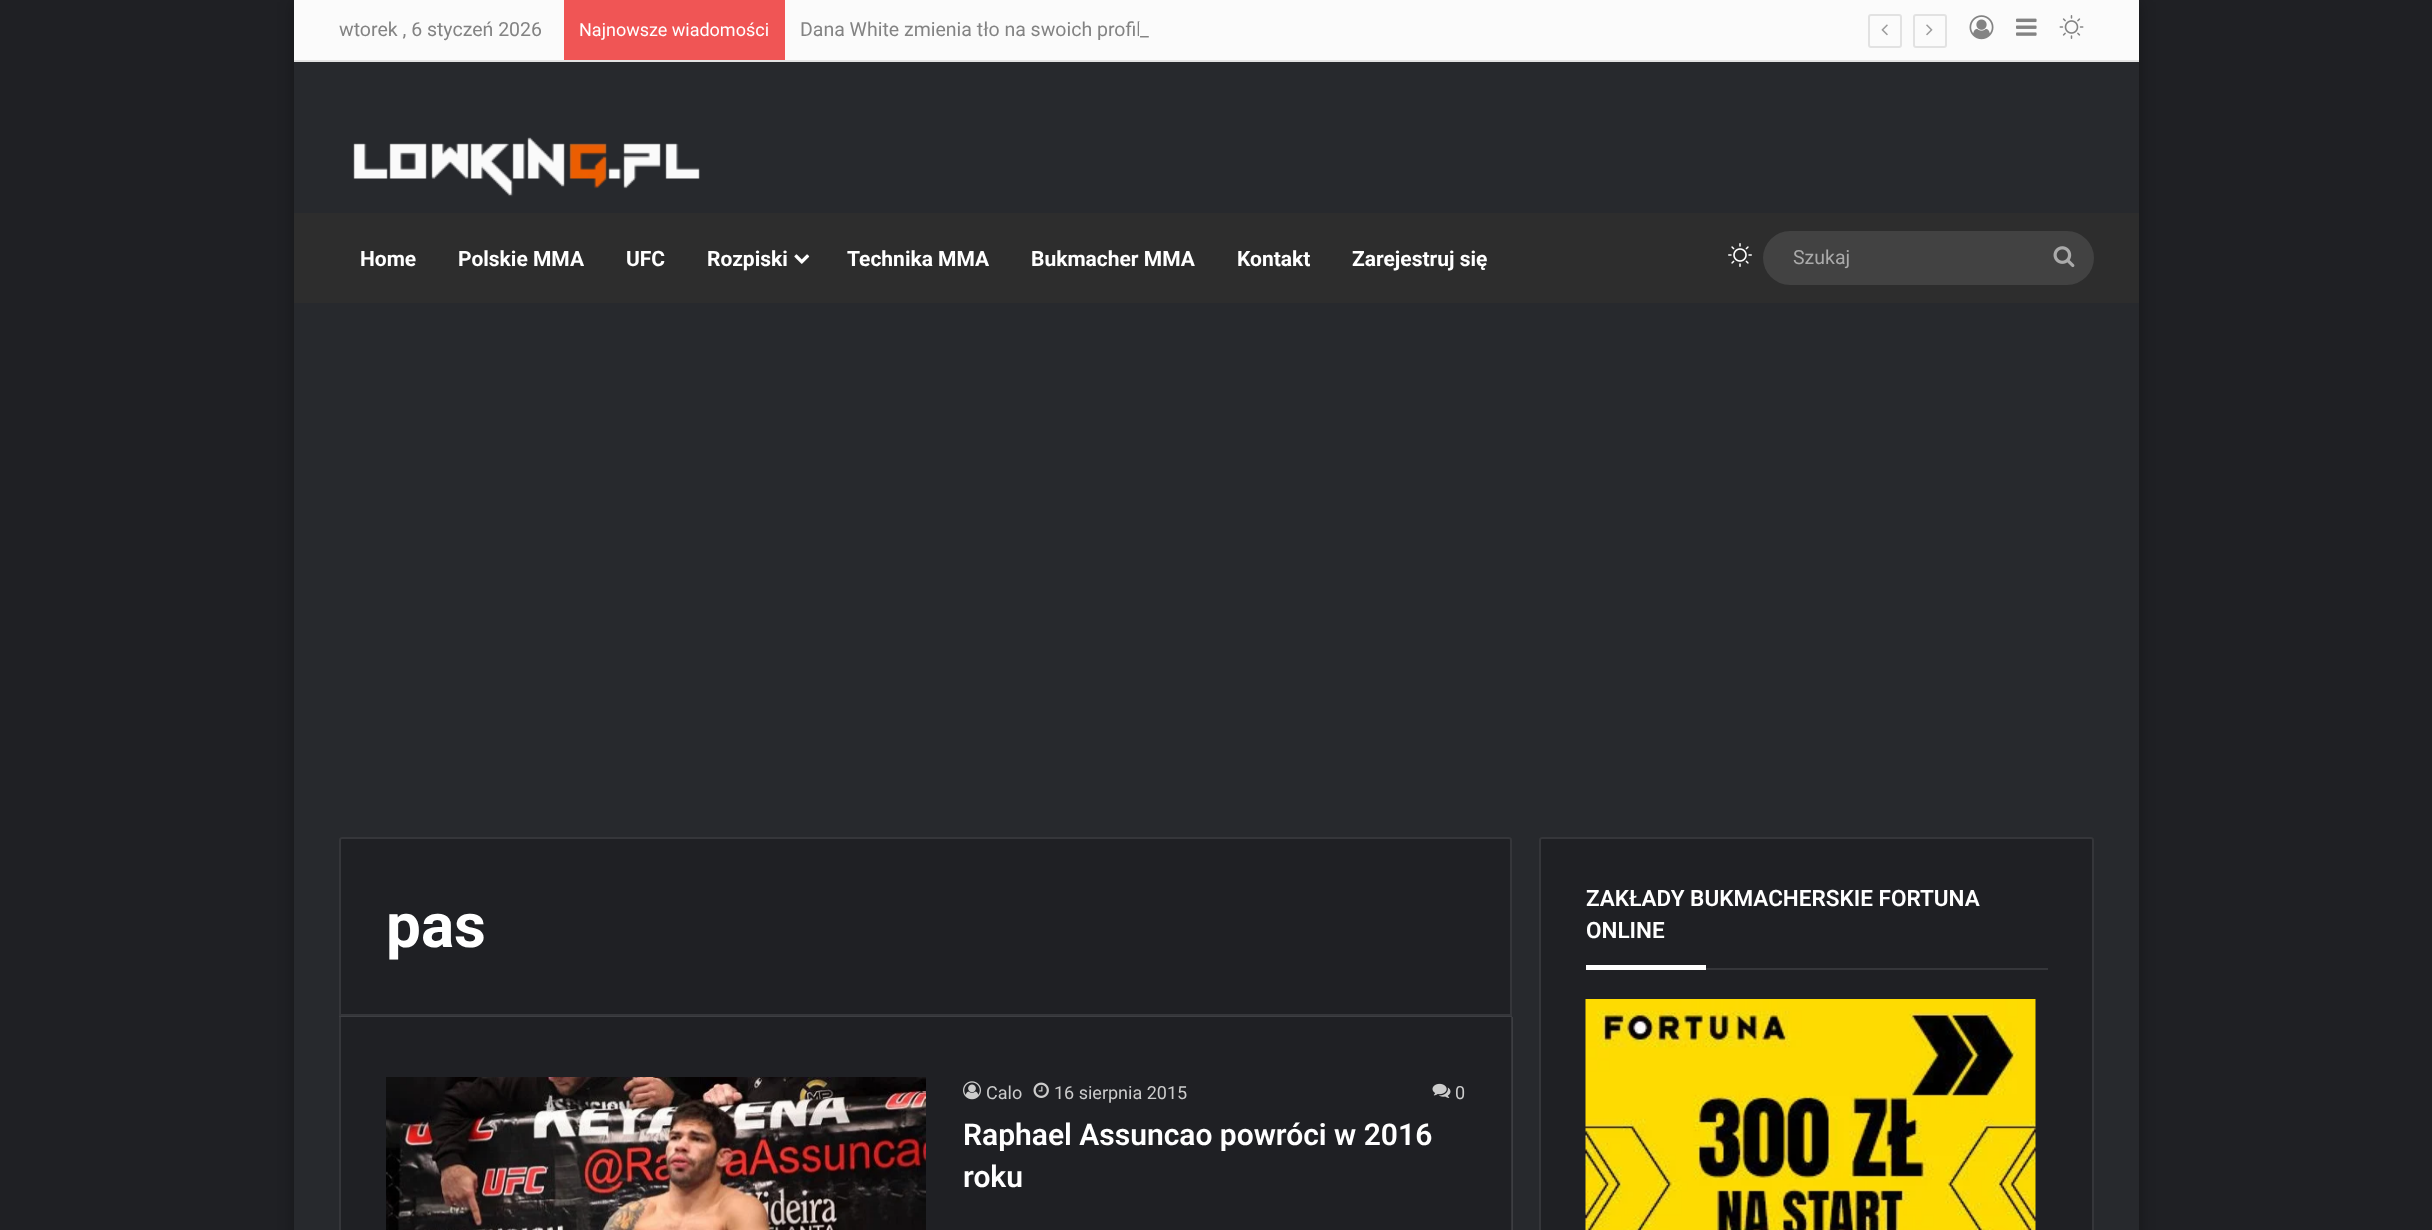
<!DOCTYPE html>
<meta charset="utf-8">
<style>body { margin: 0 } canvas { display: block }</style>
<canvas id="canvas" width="2432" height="1230"></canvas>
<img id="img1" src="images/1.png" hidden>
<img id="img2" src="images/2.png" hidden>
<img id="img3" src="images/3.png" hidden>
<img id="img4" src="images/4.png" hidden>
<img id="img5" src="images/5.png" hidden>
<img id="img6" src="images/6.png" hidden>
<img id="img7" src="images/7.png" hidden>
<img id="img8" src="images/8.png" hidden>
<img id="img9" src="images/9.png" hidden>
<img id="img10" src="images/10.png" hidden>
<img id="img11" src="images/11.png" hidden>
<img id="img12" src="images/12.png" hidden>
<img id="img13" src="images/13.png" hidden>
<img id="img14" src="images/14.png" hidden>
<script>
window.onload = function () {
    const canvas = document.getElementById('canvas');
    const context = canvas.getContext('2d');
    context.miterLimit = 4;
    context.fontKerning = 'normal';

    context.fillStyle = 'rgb(31, 32, 36)';
    context.fillRect(0, 0, 2432, 1230);
    context.fillStyle = 'rgba(0, 0, 0, 0.3)';
    context.filter = 'blur(7.5px)';
    context.beginPath();
    context.rect(294, 2, 1845, 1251);
    context.fill();
    context.filter = 'none';
    context.fillStyle = 'rgb(39, 41, 45)';
    context.fillRect(294, 62, 1845, 1168);
    context.fillStyle = 'rgb(61, 62, 66)';
    context.fillRect(1512, 1017, 1, 213);
    context.fillStyle = 'rgb(251, 251, 251)';
    context.fillRect(294, 0, 1845, 60);
    context.fillStyle = 'rgb(226, 226, 226)';
    context.fillRect(294, 60, 1845, 2);
    context.fillStyle = 'rgb(240, 85, 85)';
    context.fillRect(564, 0, 221, 60);
    context.beginPath();
    context.roundRect(1869, 15, 32, 32, 2);
    context.strokeStyle = 'rgb(226, 226, 226)';
    context.lineWidth = 2;
    context.stroke();
    context.drawImage(document.getElementById('img1'), 1881, 24, 7, 12);
    context.beginPath();
    context.roundRect(1914, 15, 32, 32, 2);
    context.stroke();
    context.drawImage(document.getElementById('img2'), 1926, 24, 7, 12);
    context.drawImage(document.getElementById('img3'), 1969, 15, 25, 25);
    context.drawImage(document.getElementById('img4'), 2016, 18, 21, 18);
    context.drawImage(document.getElementById('img5'), 2059, 15, 25, 24);
    context.drawImage(document.getElementById('img6'), 353, 137, 347, 60);
    context.fillStyle = 'rgb(45, 45, 45)';
    context.fillRect(294, 213, 1845, 90);
    context.drawImage(document.getElementById('img7'), 794, 254, 16, 10);
    context.drawImage(document.getElementById('img8'), 1728, 243, 24, 24);
    context.fillStyle = 'rgb(66, 66, 66)';
    context.beginPath();
    context.roundRect(1763, 231, 331, 54, 27);
    context.fill();
    context.drawImage(document.getElementById('img9'), 2053, 246, 22, 22);
    context.fillStyle = 'rgb(31, 32, 36)';
    context.beginPath();
    context.roundRect(339, 837, 1173, 179, [3, 3, 0, 0]);
    context.fill();
    context.beginPath();
    context.roundRect(340, 838, 1171, 177, [2, 2, 0, 0]);
    context.strokeStyle = 'rgba(255, 255, 255, 0.1)';
    context.stroke();
    context.fillStyle = 'rgb(61, 62, 66)';
    context.fillRect(339, 1016, 1173, 1);
    context.fillStyle = 'rgb(31, 32, 36)';
    context.fillRect(341, 1017, 1170, 213);
    context.fillStyle = 'rgb(53, 54, 58)';
    context.fillRect(1511, 1017, 1, 213);
    context.fillRect(339, 1017, 2, 213);
    context.drawImage(document.getElementById('img10'), 386, 1077, 540, 153);
    context.drawImage(document.getElementById('img11'), 963, 1081, 18, 19);
    context.drawImage(document.getElementById('img12'), 1033, 1082, 16, 16);
    context.drawImage(document.getElementById('img13'), 1432, 1083, 19, 15);
    context.fillStyle = 'rgb(31, 32, 36)';
    context.beginPath();
    context.roundRect(1539, 837, 555, 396, 3);
    context.fill();
    context.beginPath();
    context.roundRect(1540, 838, 553, 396, 2);
    context.stroke();
    context.fillStyle = 'rgb(53, 54, 58)';
    context.fillRect(1706, 968, 342, 2);
    context.fillStyle = 'rgb(255, 255, 255)';
    context.fillRect(1586, 965, 120, 5);
    context.drawImage(document.getElementById('img14'), 1585, 999, 451, 231);
    context.font = '19.5px Roboto';
    context.fillStyle = 'rgb(131, 131, 131)';
    context.fillText('wtorek , 6 styczeń 2026', 339, 36);
    context.font = '18px Roboto';
    context.fillStyle = 'rgb(255, 255, 255)';
    context.fillText('Najnowsze wiadomości', 579, 36);
    context.font = '19.5px Roboto';
    context.fillStyle = 'rgb(131, 131, 131)';
    context.fillText('Dana White zmienia tło na swoich profil', 800, 36);
    context.fillStyle = 'rgb(251, 251, 251)';
    context.fillRect(1139, 22, 1, 14);
    context.fillStyle = 'rgb(131, 131, 131)';
    context.fillText('_', 1140, 36);
    context.font = 'bold 21px Roboto';
    context.fillStyle = 'rgb(255, 255, 255)';
    context.fillText('Home', 360, 266);
    context.fillText('Polskie MMA', 458, 266);
    context.fillText('UFC', 626, 266);
    context.fillText('Rozpiski', 707, 266);
    context.fillText('Technika MMA', 847, 266);
    context.fillText('Bukmacher MMA', 1031, 266);
    context.fillText('Kontakt', 1237, 266);
    context.fillText('Zarejestruj się', 1352, 266);
    context.font = '19.5px Roboto';
    context.fillStyle = 'rgb(170, 170, 170)';
    context.fillText('Szukaj', 1793, 264);
    context.font = 'bold 62px Roboto';
    context.fillStyle = 'rgb(255, 255, 255)';
    context.fillText('pas', 386, 947);
    context.font = '18px Roboto';
    context.fillStyle = 'rgb(204, 204, 204)';
    context.fillText('Calo', 986, 1099);
    context.fillText('16 sierpnia 2015', 1054, 1099);
    context.fillText('0', 1455, 1099);
    context.font = '600 30px Roboto';
    context.fillStyle = 'rgb(255, 255, 255)';
    context.fillText('Raphael Assuncao powróci w 2016', 963, 1145);
    context.fillText('roku', 963, 1187);
    context.font = '600 22.5px Roboto';
    context.fillText('ZAKŁADY BUKMACHERSKIE FORTUNA', 1586, 906);
    context.fillText('ONLINE', 1586, 938);
};
</script>
